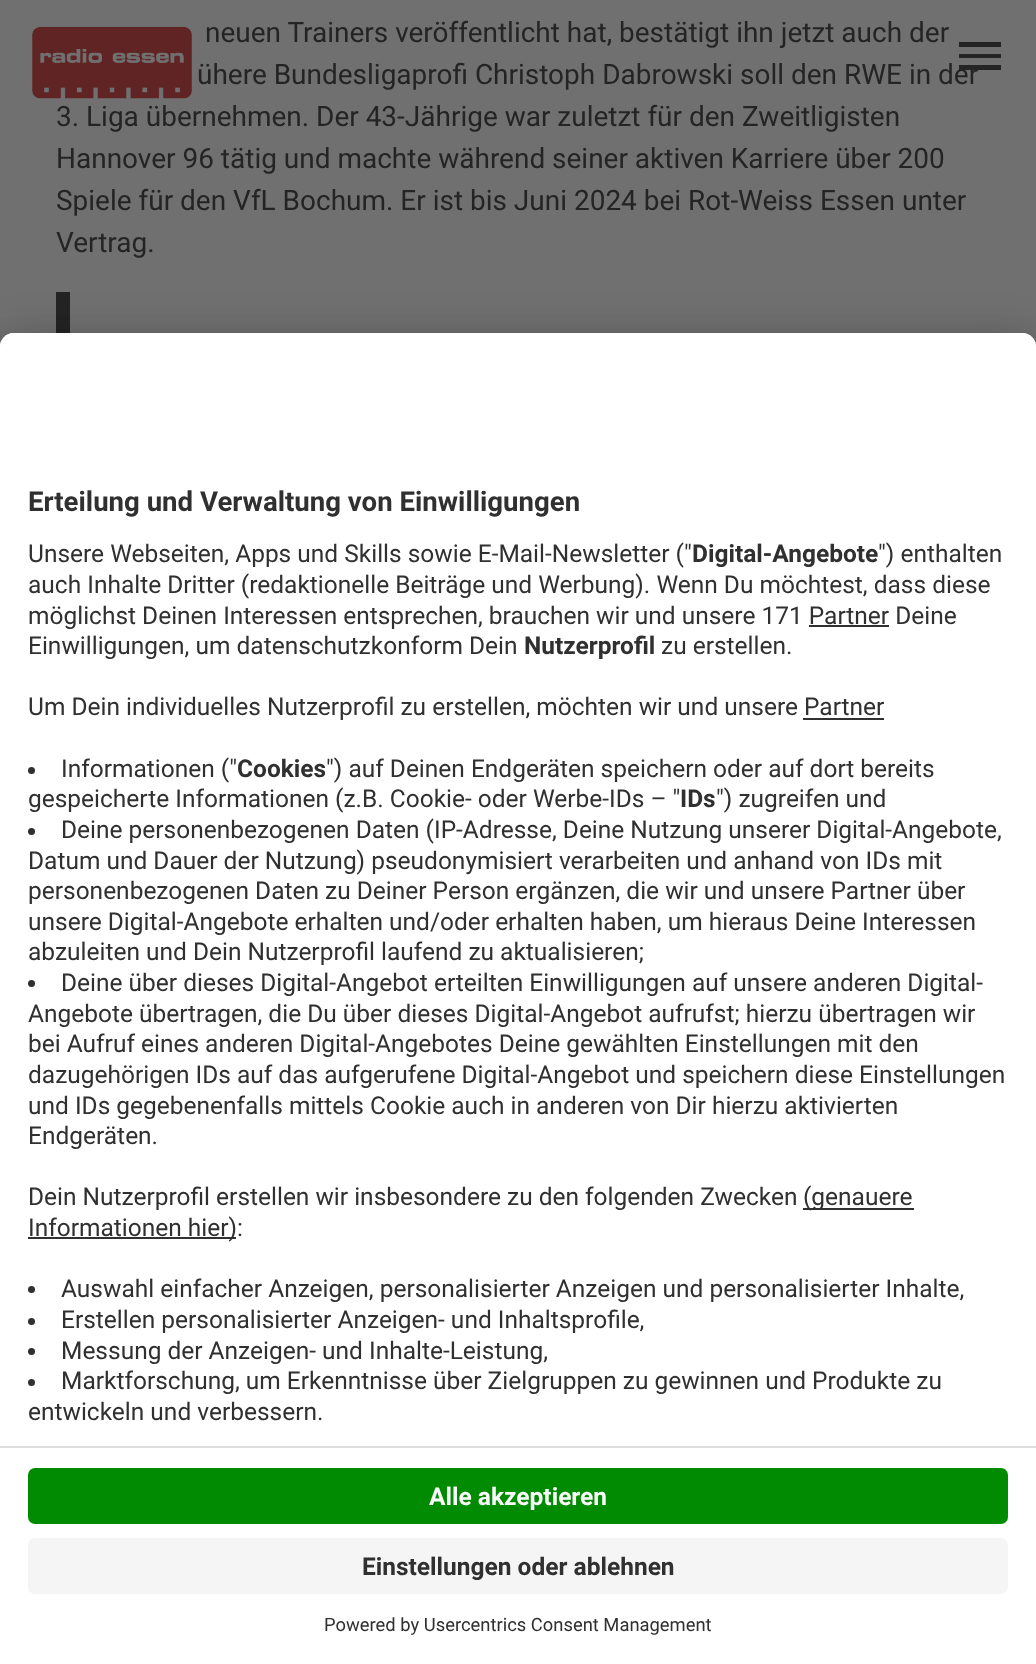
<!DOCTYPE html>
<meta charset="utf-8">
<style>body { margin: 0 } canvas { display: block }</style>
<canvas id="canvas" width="1036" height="1664"></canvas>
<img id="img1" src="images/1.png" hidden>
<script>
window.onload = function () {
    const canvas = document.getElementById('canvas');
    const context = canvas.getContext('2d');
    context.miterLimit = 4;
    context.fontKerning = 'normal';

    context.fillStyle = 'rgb(112, 112, 112)';
    context.fillRect(0, 0, 1036, 1664);
    context.fillStyle = 'rgb(36, 36, 36)';
    context.fillRect(56, 292, 14, 41);
    context.drawImage(document.getElementById('img1'), 32, 22, 164, 77);
    context.beginPath();
    context.moveTo(959, 70);
    context.lineTo(959, 65);
    context.lineTo(1001, 65);
    context.lineTo(1001, 70);
    context.closePath();
    context.moveTo(959, 58);
    context.lineTo(959, 54);
    context.lineTo(1001, 54);
    context.lineTo(1001, 58);
    context.closePath();
    context.moveTo(959, 47);
    context.lineTo(959, 42);
    context.lineTo(1001, 42);
    context.lineTo(1001, 47);
    context.closePath();
    context.fill();
    context.fillStyle = 'rgba(0, 0, 0, 0.3)';
    context.filter = 'blur(24.5px)';
    context.beginPath();
    context.roundRect(0, 368, 1036, 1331, 14);
    context.fill();
    context.filter = 'none';
    context.fillStyle = 'rgba(0, 0, 0, 0.22)';
    context.filter = 'blur(23px)';
    context.beginPath();
    context.roundRect(0, 341, 1036, 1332, 14);
    context.fill();
    context.filter = 'none';
    context.fillStyle = 'rgb(255, 255, 255)';
    context.beginPath();
    context.roundRect(0, 333, 1036, 1331, [14, 14, 0, 0]);
    context.fill();
    context.beginPath();
    context.roundRect(0, 333, 1036, 1113, [14, 14, 0, 0]);
    context.fill();
    context.fillStyle = 'rgb(48, 48, 48)';
    context.fillRect(809, 625, 80, 2);
    context.fillRect(803, 718, 81, 2);
    context.beginPath();
    context.arc(31.5, 770.5, 3.5, 0, 2 * Math.PI);
    context.fill();
    context.beginPath();
    context.arc(31.5, 831.5, 3.5, 0, 2 * Math.PI);
    context.fill();
    context.beginPath();
    context.arc(31.5, 983.5, 3.5, 0, 2 * Math.PI);
    context.fill();
    context.fillRect(803, 1208, 111, 2);
    context.fillRect(28, 1237, 208, 2);
    context.beginPath();
    context.arc(31.5, 1289.5, 3.5, 0, 2 * Math.PI);
    context.fill();
    context.beginPath();
    context.arc(31.5, 1321.5, 3.5, 0, 2 * Math.PI);
    context.fill();
    context.beginPath();
    context.arc(31.5, 1351.5, 3.5, 0, 2 * Math.PI);
    context.fill();
    context.beginPath();
    context.arc(31.5, 1382.5, 3.5, 0, 2 * Math.PI);
    context.fill();
    context.fillStyle = 'rgb(221, 221, 221)';
    context.fillRect(0, 1446, 1036, 2);
    context.fillStyle = 'rgb(0, 139, 2)';
    context.beginPath();
    context.roundRect(28, 1468, 980, 56, 7);
    context.fill();
    context.fillStyle = 'rgb(245, 245, 245)';
    context.beginPath();
    context.roundRect(28, 1538, 980, 56, 7);
    context.fill();
    context.font = '28px Roboto';
    context.fillStyle = 'rgb(36, 36, 36)';
    context.fillText('neuen Trainers veröffentlicht hat, bestätigt ihn jetzt auch der', 205, 42);
    context.fillText('ühere Bundesligaprofi Christoph Dabrowski soll den RWE in der', 197, 84);
    context.fillText('3. Liga übernehmen. Der 43-Jährige war zuletzt für den Zweitligisten', 56, 126);
    context.fillText('Hannover 96 tätig und machte während seiner aktiven Karriere über 200', 56, 168);
    context.fillText('Spiele für den VfL Bochum. Er ist bis Juni 2024 bei Rot-Weiss Essen unter', 56, 210);
    context.fillText('Vertrag.', 56, 252);
    context.font = 'bold 27.6px Roboto';
    context.fillStyle = 'rgb(48, 48, 48)';
    context.fillText('Erteilung und Verwaltung von Einwilligungen', 28, 511);
    context.font = '24.5px Roboto';
    context.fillText('Unsere Webseiten, Apps und Skills sowie E-Mail-Newsletter ("', 28, 562);
    context.font = 'bold 24.5px Roboto';
    context.fillText('Digital-Angebote', 692, 562);
    context.font = '24.5px Roboto';
    context.fillText('") enthalten', 878, 562);
    context.fillText('auch Inhalte Dritter (redaktionelle Beiträge und Werbung). Wenn Du möchtest, dass diese', 28, 593);
    context.fillText('möglichst Deinen Interessen entsprechen, brauchen wir und unsere 171 Partner Deine', 28, 624);
    context.fillText('Einwilligungen, um datenschutzkonform Dein', 28, 654);
    context.font = 'bold 24.5px Roboto';
    context.fillText('Nutzerprofil', 524, 654);
    context.font = '24.5px Roboto';
    context.fillText('zu erstellen.', 661, 654);
    context.fillText('Um Dein individuelles Nutzerprofil zu erstellen, möchten wir und unsere Partner', 28, 715);
    context.fillText('Informationen ("', 61, 777);
    context.font = 'bold 24.5px Roboto';
    context.fillText('Cookies', 237, 777);
    context.font = '24.5px Roboto';
    context.fillText('") auf Deinen Endgeräten speichern oder auf dort bereits', 326, 777);
    context.fillText('gespeicherte Informationen (z.B. Cookie- oder Werbe-IDs – "', 28, 807);
    context.font = 'bold 24.5px Roboto';
    context.fillText('IDs', 680, 807);
    context.font = '24.5px Roboto';
    context.fillText('") zugreifen und', 716, 807);
    context.fillText('Deine personenbezogenen Daten (IP-Adresse, Deine Nutzung unserer Digital-Angebote,', 61, 838);
    context.fillText('Datum und Dauer der Nutzung) pseudonymisiert verarbeiten und anhand von IDs mit', 28, 869);
    context.fillText('personenbezogenen Daten zu Deiner Person ergänzen, die wir und unsere Partner über', 28, 899);
    context.fillText('unsere Digital-Angebote erhalten und/oder erhalten haben, um hieraus Deine Interessen', 28, 930);
    context.fillText('abzuleiten und Dein Nutzerprofil laufend zu aktualisieren;', 28, 960);
    context.fillText('Deine über dieses Digital-Angebot erteilten Einwilligungen auf unsere anderen Digital-', 61, 991);
    context.fillText('Angebote übertragen, die Du über dieses Digital-Angebot aufrufst; hierzu übertragen wir', 28, 1022);
    context.fillText('bei Aufruf eines anderen Digital-Angebotes Deine gewählten Einstellungen mit den', 28, 1052);
    context.fillText('dazugehörigen IDs auf das aufgerufene Digital-Angebot und speichern diese Einstellungen', 28, 1083);
    context.fillText('und IDs gegebenenfalls mittels Cookie auch in anderen von Dir hierzu aktivierten', 28, 1114);
    context.fillText('Endgeräten.', 28, 1144);
    context.fillText('Dein Nutzerprofil erstellen wir insbesondere zu den folgenden Zwecken', 28, 1205);
    context.fillText('(genauere', 803, 1205);
    context.fillText('Informationen hier):', 28, 1236);
    context.fillText('Auswahl einfacher Anzeigen, personalisierter Anzeigen und personalisierter Inhalte,', 61, 1297);
    context.fillText('Erstellen personalisierter Anzeigen- und Inhaltsprofile,', 61, 1328);
    context.fillText('Messung der Anzeigen- und Inhalte-Leistung,', 61, 1359);
    context.fillText('Marktforschung, um Erkenntnisse über Zielgruppen zu gewinnen und Produkte zu', 61, 1389);
    context.fillText('entwickeln und verbessern.', 28, 1420);
    context.font = 'bold 24.5px Roboto';
    context.fillStyle = 'rgb(250, 250, 250)';
    context.fillText('Alle akzeptieren', 429, 1505);
    context.fillStyle = 'rgb(48, 48, 48)';
    context.fillText('Einstellungen oder ablehnen', 362, 1575);
    context.font = '18.4px Roboto';
    context.fillText('Powered by Usercentrics Consent Management', 324, 1631);
};
</script>
